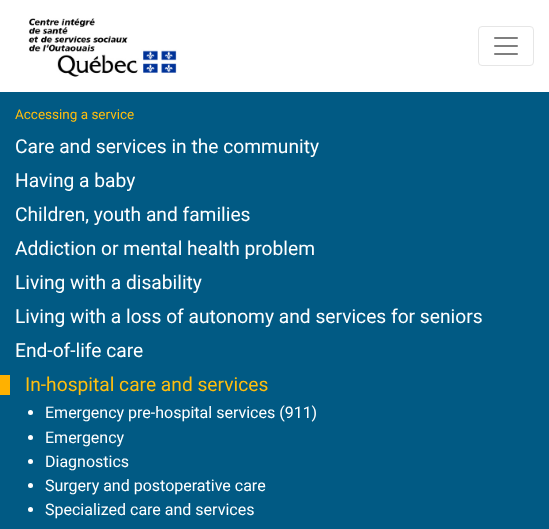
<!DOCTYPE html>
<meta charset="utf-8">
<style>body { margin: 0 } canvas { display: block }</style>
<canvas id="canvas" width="549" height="529"></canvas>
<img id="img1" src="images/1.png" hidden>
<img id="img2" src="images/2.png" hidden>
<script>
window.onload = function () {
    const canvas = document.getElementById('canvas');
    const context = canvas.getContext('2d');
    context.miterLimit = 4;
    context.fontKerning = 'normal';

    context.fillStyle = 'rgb(255, 255, 255)';
    context.fillRect(0, 0, 549, 529);
    context.drawImage(document.getElementById('img1'), 28, 18, 149, 59);
    context.beginPath();
    context.roundRect(478.5, 26.5, 55, 39, 3.5);
    context.strokeStyle = 'rgb(230, 230, 230)';
    context.stroke();
    context.drawImage(document.getElementById('img2'), 494, 37, 24, 18);
    context.fillStyle = 'rgb(1, 90, 132)';
    context.fillRect(0, 92, 549, 437);
    context.fillStyle = 'rgb(255, 177, 0)';
    context.fillRect(0, 375, 10, 20);
    context.fillStyle = 'rgb(255, 255, 255)';
    context.beginPath();
    context.arc(30.5, 412.5, 2.5, 0, 2 * Math.PI);
    context.fill();
    context.beginPath();
    context.arc(30.5, 437.5, 2.5, 0, 2 * Math.PI);
    context.fill();
    context.beginPath();
    context.arc(30.5, 461.5, 2.5, 0, 2 * Math.PI);
    context.fill();
    context.beginPath();
    context.arc(30.5, 485.5, 2.5, 0, 2 * Math.PI);
    context.fill();
    context.beginPath();
    context.arc(30.5, 509.5, 2.5, 0, 2 * Math.PI);
    context.fill();
    context.font = '13.5px Roboto';
    context.fillStyle = 'rgb(255, 190, 14)';
    context.fillText('Accessing a service', 15, 119);
    context.font = '19.2px Roboto';
    context.fillStyle = 'rgb(255, 255, 255)';
    context.fillText('Care and services in the community', 15, 153);
    context.fillText('Having a baby', 15, 187);
    context.fillText('Children, youth and families', 15, 221);
    context.fillText('Addiction or mental health problem', 15, 255);
    context.fillText('Living with a disability', 15, 289);
    context.fillText('Living with a loss of autonomy and services for seniors', 15, 323);
    context.fillText('End-of-life care', 15, 357);
    context.fillStyle = 'rgb(255, 190, 14)';
    context.fillText('In-hospital care and services', 25, 391);
    context.font = '16px Roboto';
    context.fillStyle = 'rgb(255, 255, 255)';
    context.fillText('Emergency pre-hospital services (911)', 45, 418);
    context.fillText('Emergency', 45, 443);
    context.fillText('Diagnostics', 45, 467);
    context.fillText('Surgery and postoperative care', 45, 491);
    context.fillText('Specialized care and services', 45, 515);
};
</script>
